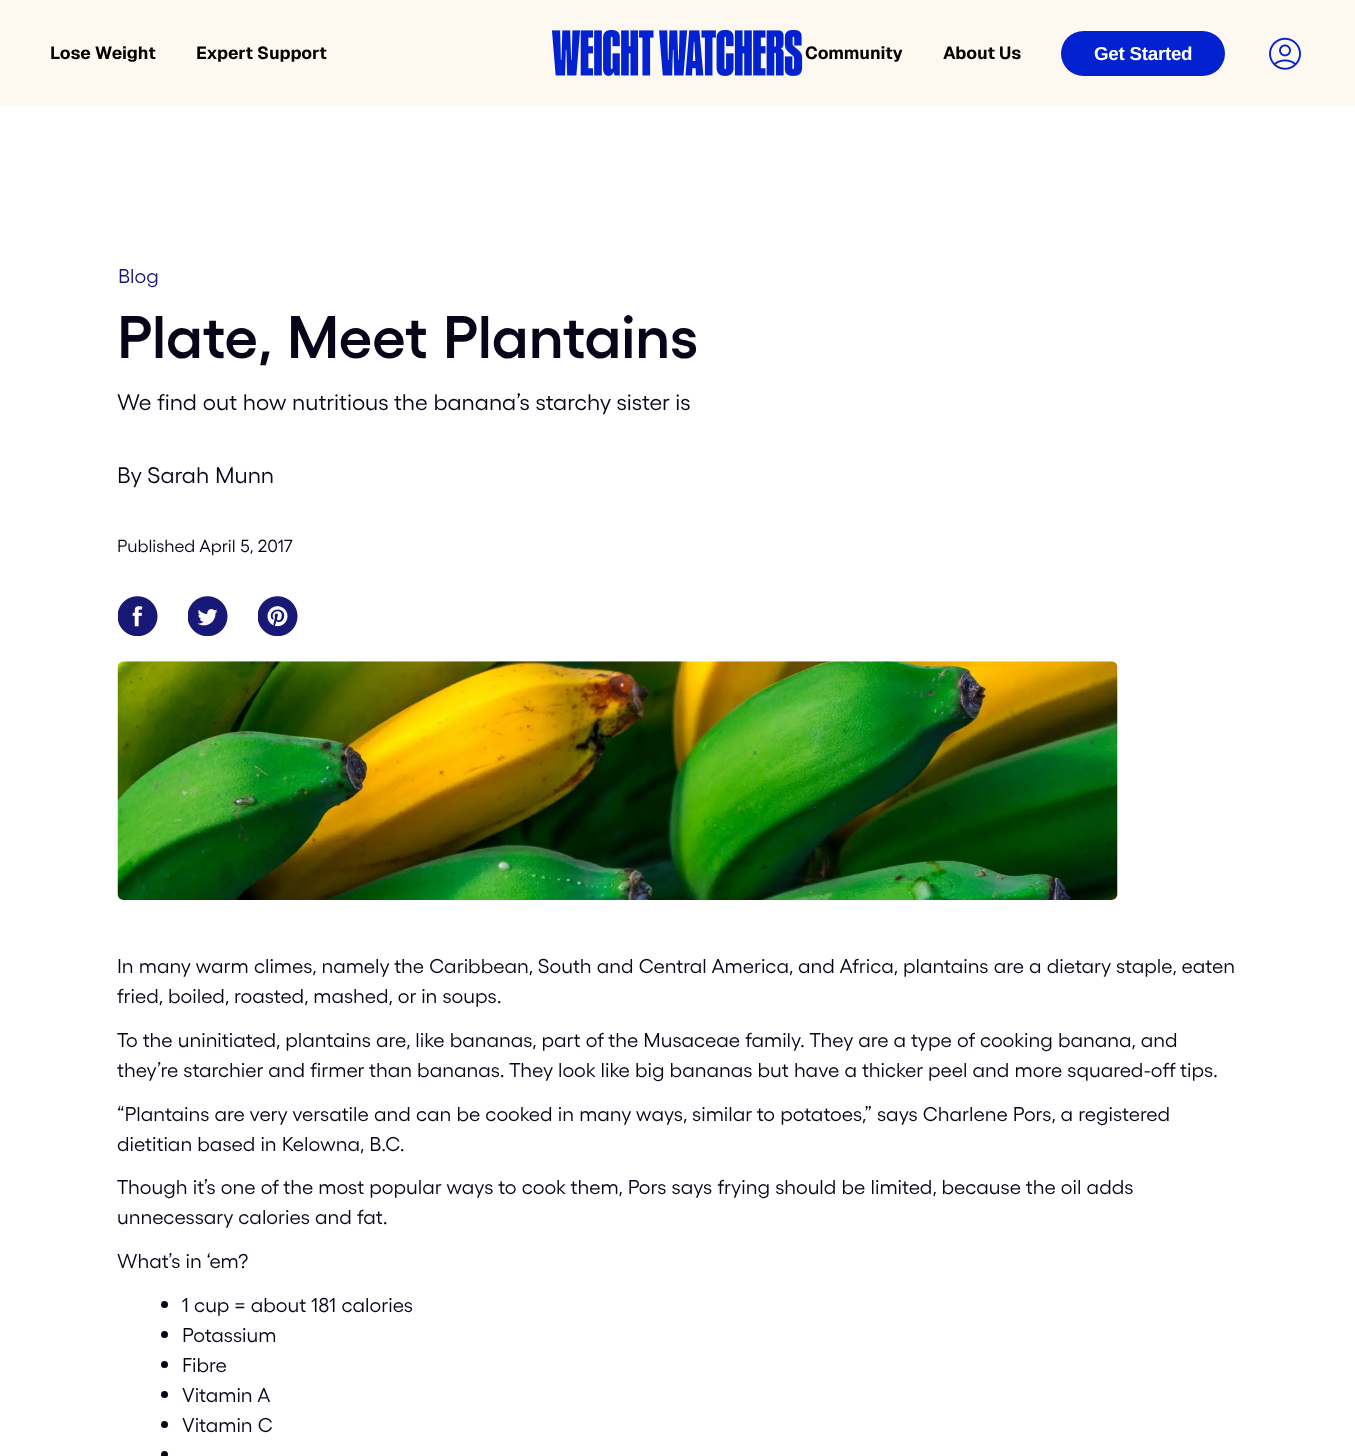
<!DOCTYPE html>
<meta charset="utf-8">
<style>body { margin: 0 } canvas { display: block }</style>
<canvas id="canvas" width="1355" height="1456"></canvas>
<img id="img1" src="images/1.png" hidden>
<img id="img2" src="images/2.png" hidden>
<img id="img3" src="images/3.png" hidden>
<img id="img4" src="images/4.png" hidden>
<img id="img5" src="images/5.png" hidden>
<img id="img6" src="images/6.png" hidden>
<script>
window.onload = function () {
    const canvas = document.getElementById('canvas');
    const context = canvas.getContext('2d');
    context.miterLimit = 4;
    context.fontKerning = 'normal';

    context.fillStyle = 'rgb(255, 255, 255)';
    context.fillRect(0, 0, 1355, 1456);
    context.fillStyle = 'rgb(254, 249, 240)';
    context.fillRect(0, 0, 1355, 106);
    context.drawImage(document.getElementById('img1'), 552, 30, 251, 46);
    context.fillStyle = 'rgb(2, 34, 208)';
    context.beginPath();
    context.roundRect(1061, 31, 164, 45, 22.5);
    context.fill();
    context.drawImage(document.getElementById('img2'), 1269, 37, 32, 33);
    context.drawImage(document.getElementById('img3'), 118, 596, 40, 40);
    context.drawImage(document.getElementById('img4'), 188, 596, 40, 40);
    context.drawImage(document.getElementById('img5'), 258, 596, 40, 40);
    context.drawImage(document.getElementById('img6'), 117, 661, 1001, 239);
    context.fillStyle = 'rgb(7, 5, 23)';
    context.beginPath();
    context.arc(164.5, 1304.5, 3.5, 0, 2 * Math.PI);
    context.fill();
    context.beginPath();
    context.arc(164.5, 1334.5, 3.5, 0, 2 * Math.PI);
    context.fill();
    context.beginPath();
    context.arc(164.5, 1364.5, 3.5, 0, 2 * Math.PI);
    context.fill();
    context.beginPath();
    context.arc(164.5, 1394.5, 3.5, 0, 2 * Math.PI);
    context.fill();
    context.beginPath();
    context.arc(164.5, 1424.5, 3.5, 0, 2 * Math.PI);
    context.fill();
    context.beginPath();
    context.arc(164.5, 1454.5, 3.5, 0, 2 * Math.PI);
    context.fill();
    context.font = 'bold 17.5px Geist';
    context.fillStyle = 'rgb(0, 0, 0)';
    context.fillText('Lose Weight', 50, 59);
    context.fillText('Expert Support', 196, 59);
    context.fillText('Community', 805, 59);
    context.fillText('About Us', 943, 59);
    context.letterSpacing = '-0.25px';
    context.font = 'bold 18.75px Liberation Sans';
    context.fillStyle = 'rgb(255, 255, 255)';
    context.fillText('Get Started', 1094, 60);
    context.letterSpacing = '0px';
    context.font = '20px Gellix';
    context.fillStyle = 'rgb(24, 24, 119)';
    context.fillText('Blog', 118, 283);
    context.font = '600 60px Gellix';
    context.fillStyle = 'rgb(7, 5, 23)';
    context.fillText('Plate, Meet Plantains', 117, 358);
    context.font = '22.5px Gellix';
    context.fillText('We find out how nutritious the banana’s starchy sister is', 117, 410);
    context.fillText('By Sarah Munn', 117, 483);
    context.font = '17.5px Gellix';
    context.fillText('Published April 5, 2017', 117, 552);
    context.font = '20px Gellix';
    context.fillText('In many warm climes, namely the Caribbean, South and Central America, and Africa, plantains are a dietary staple, eaten', 117, 973);
    context.fillText('fried, boiled, roasted, mashed, or in soups.', 117, 1003);
    context.fillText('To the uninitiated, plantains are, like bananas, part of the Musaceae family. They are a type of cooking banana, and', 117, 1047);
    context.fillText('they’re starchier and firmer than bananas. They look like big bananas but have a thicker peel and more squared-off tips.', 117, 1077);
    context.fillText('“Plantains are very versatile and can be cooked in many ways, similar to potatoes,” says Charlene Pors, a registered', 117, 1121);
    context.fillText('dietitian based in Kelowna, B.C.', 117, 1151);
    context.fillText('Though it’s one of the most popular ways to cook them, Pors says frying should be limited, because the oil adds', 117, 1194);
    context.fillText('unnecessary calories and fat.', 117, 1224);
    context.fillText('What’s in ‘em?', 117, 1268);
    context.fillText('1 cup = about 181 calories', 182, 1312);
    context.fillText('Potassium', 182, 1342);
    context.fillText('Fibre', 182, 1372);
    context.fillText('Vitamin A', 182, 1402);
    context.fillText('Vitamin C', 182, 1432);
};
</script>
